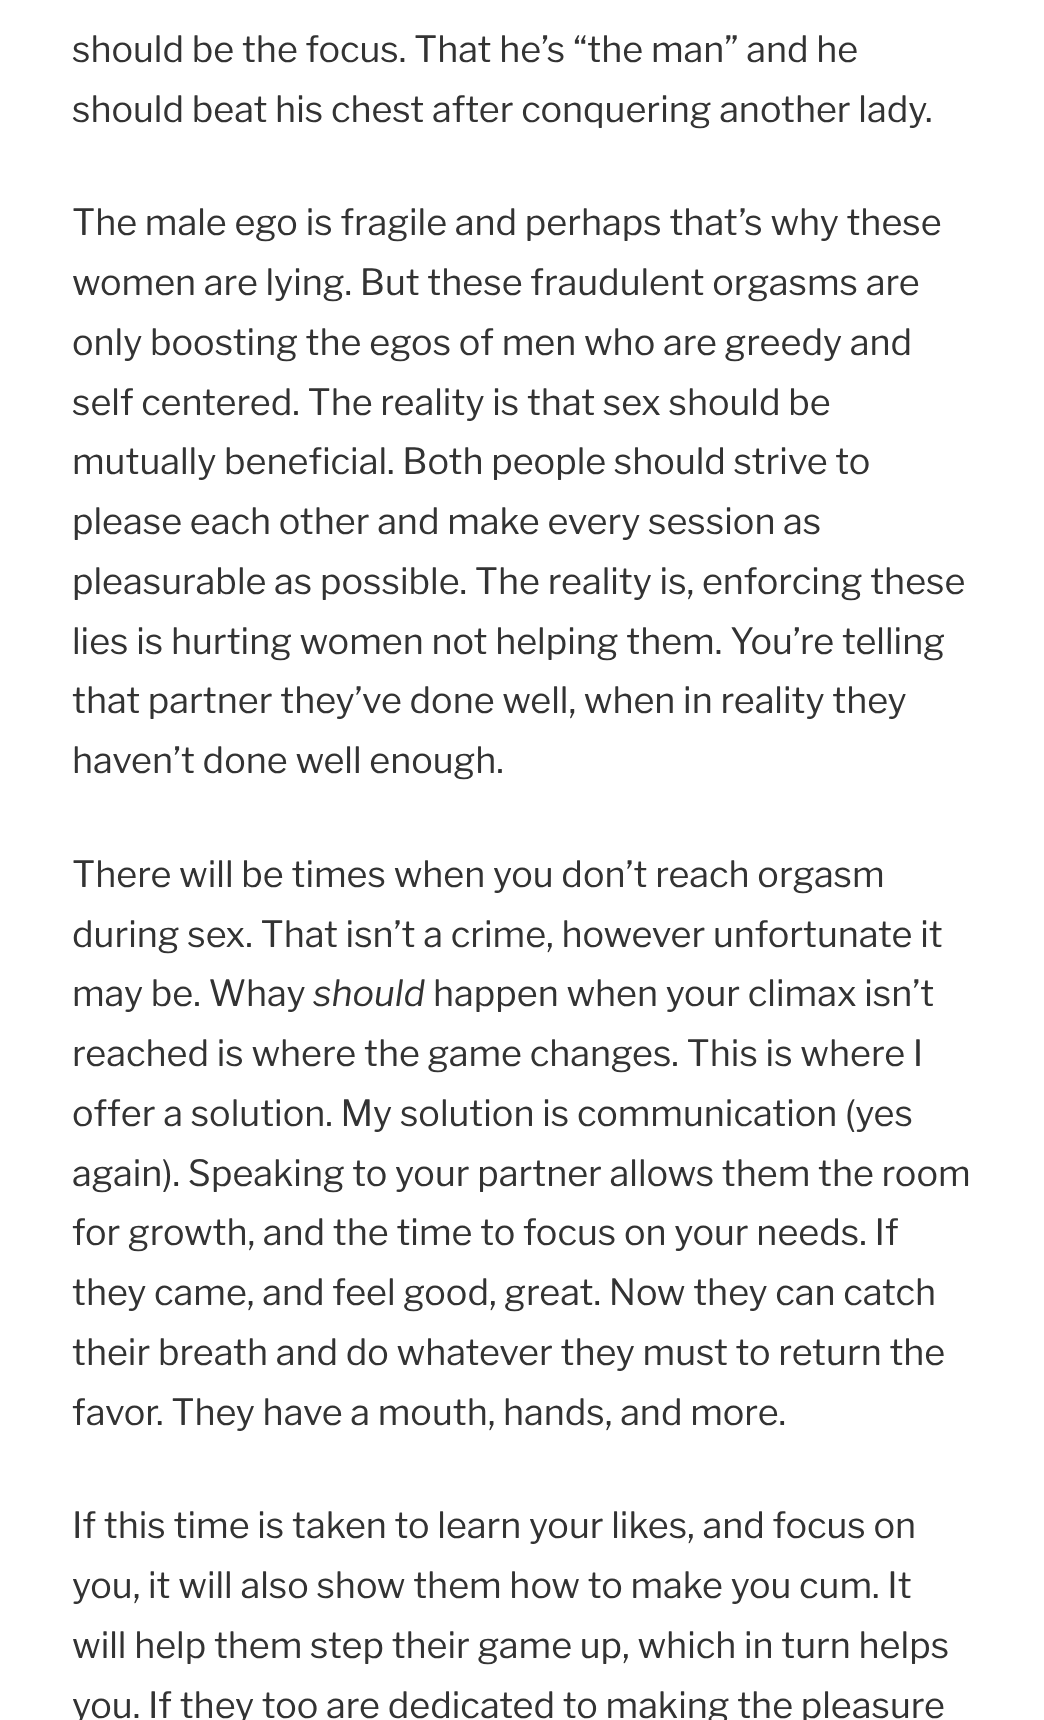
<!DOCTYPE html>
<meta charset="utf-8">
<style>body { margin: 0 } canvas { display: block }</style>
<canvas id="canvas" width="1044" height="1720"></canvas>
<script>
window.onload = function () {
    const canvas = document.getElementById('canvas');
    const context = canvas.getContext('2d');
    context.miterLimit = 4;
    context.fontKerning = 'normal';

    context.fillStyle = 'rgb(255, 255, 255)';
    context.fillRect(0, 0, 1044, 1720);
    context.font = '36px Libre Franklin';
    context.fillStyle = 'rgb(51, 51, 51)';
    context.fillText('should be the focus. That he’s “the man” and he', 72, 62);
    context.fillText('should beat his chest after conquering another lady.', 72, 122);
    context.fillText('The male ego is fragile and perhaps that’s why these', 72, 235);
    context.fillText('women are lying. But these fraudulent orgasms are', 72, 295);
    context.fillText('only boosting the egos of men who are greedy and', 72, 355);
    context.fillText('self centered. The reality is that sex should be', 72, 415);
    context.fillText('mutually beneficial. Both people should strive to', 72, 474);
    context.fillText('please each other and make every session as', 72, 534);
    context.fillText('pleasurable as possible. The reality is, enforcing these', 72, 594);
    context.fillText('lies is hurting women not helping them. You’re telling', 72, 654);
    context.fillText('that partner they’ve done well, when in reality they', 72, 713);
    context.fillText('haven’t done well enough.', 72, 773);
    context.fillText('There will be times when you don’t reach orgasm', 72, 887);
    context.fillText('during sex. That isn’t a crime, however unfortunate it', 72, 947);
    context.fillText('may be. Whay', 72, 1006);
    context.font = 'italic 36px Libre Franklin';
    context.fillText('should', 313, 1006);
    context.font = '36px Libre Franklin';
    context.fillText('happen when your climax isn’t', 433, 1006);
    context.fillText('reached is where the game changes. This is where I', 72, 1066);
    context.fillText('offer a solution. My solution is communication (yes', 72, 1126);
    context.fillText('again). Speaking to your partner allows them the room', 72, 1186);
    context.fillText('for growth, and the time to focus on your needs. If', 72, 1245);
    context.fillText('they came, and feel good, great. Now they can catch', 72, 1305);
    context.fillText('their breath and do whatever they must to return the', 72, 1365);
    context.fillText('favor. They have a mouth, hands, and more.', 72, 1425);
    context.fillText('If this time is taken to learn your likes, and focus on', 72, 1538);
    context.fillText('you, it will also show them how to make you cum. It', 72, 1598);
    context.fillText('will help them step their game up, which in turn helps', 72, 1658);
    context.fillText('you. If they too are dedicated to making the pleasure', 72, 1718);
};
</script>
